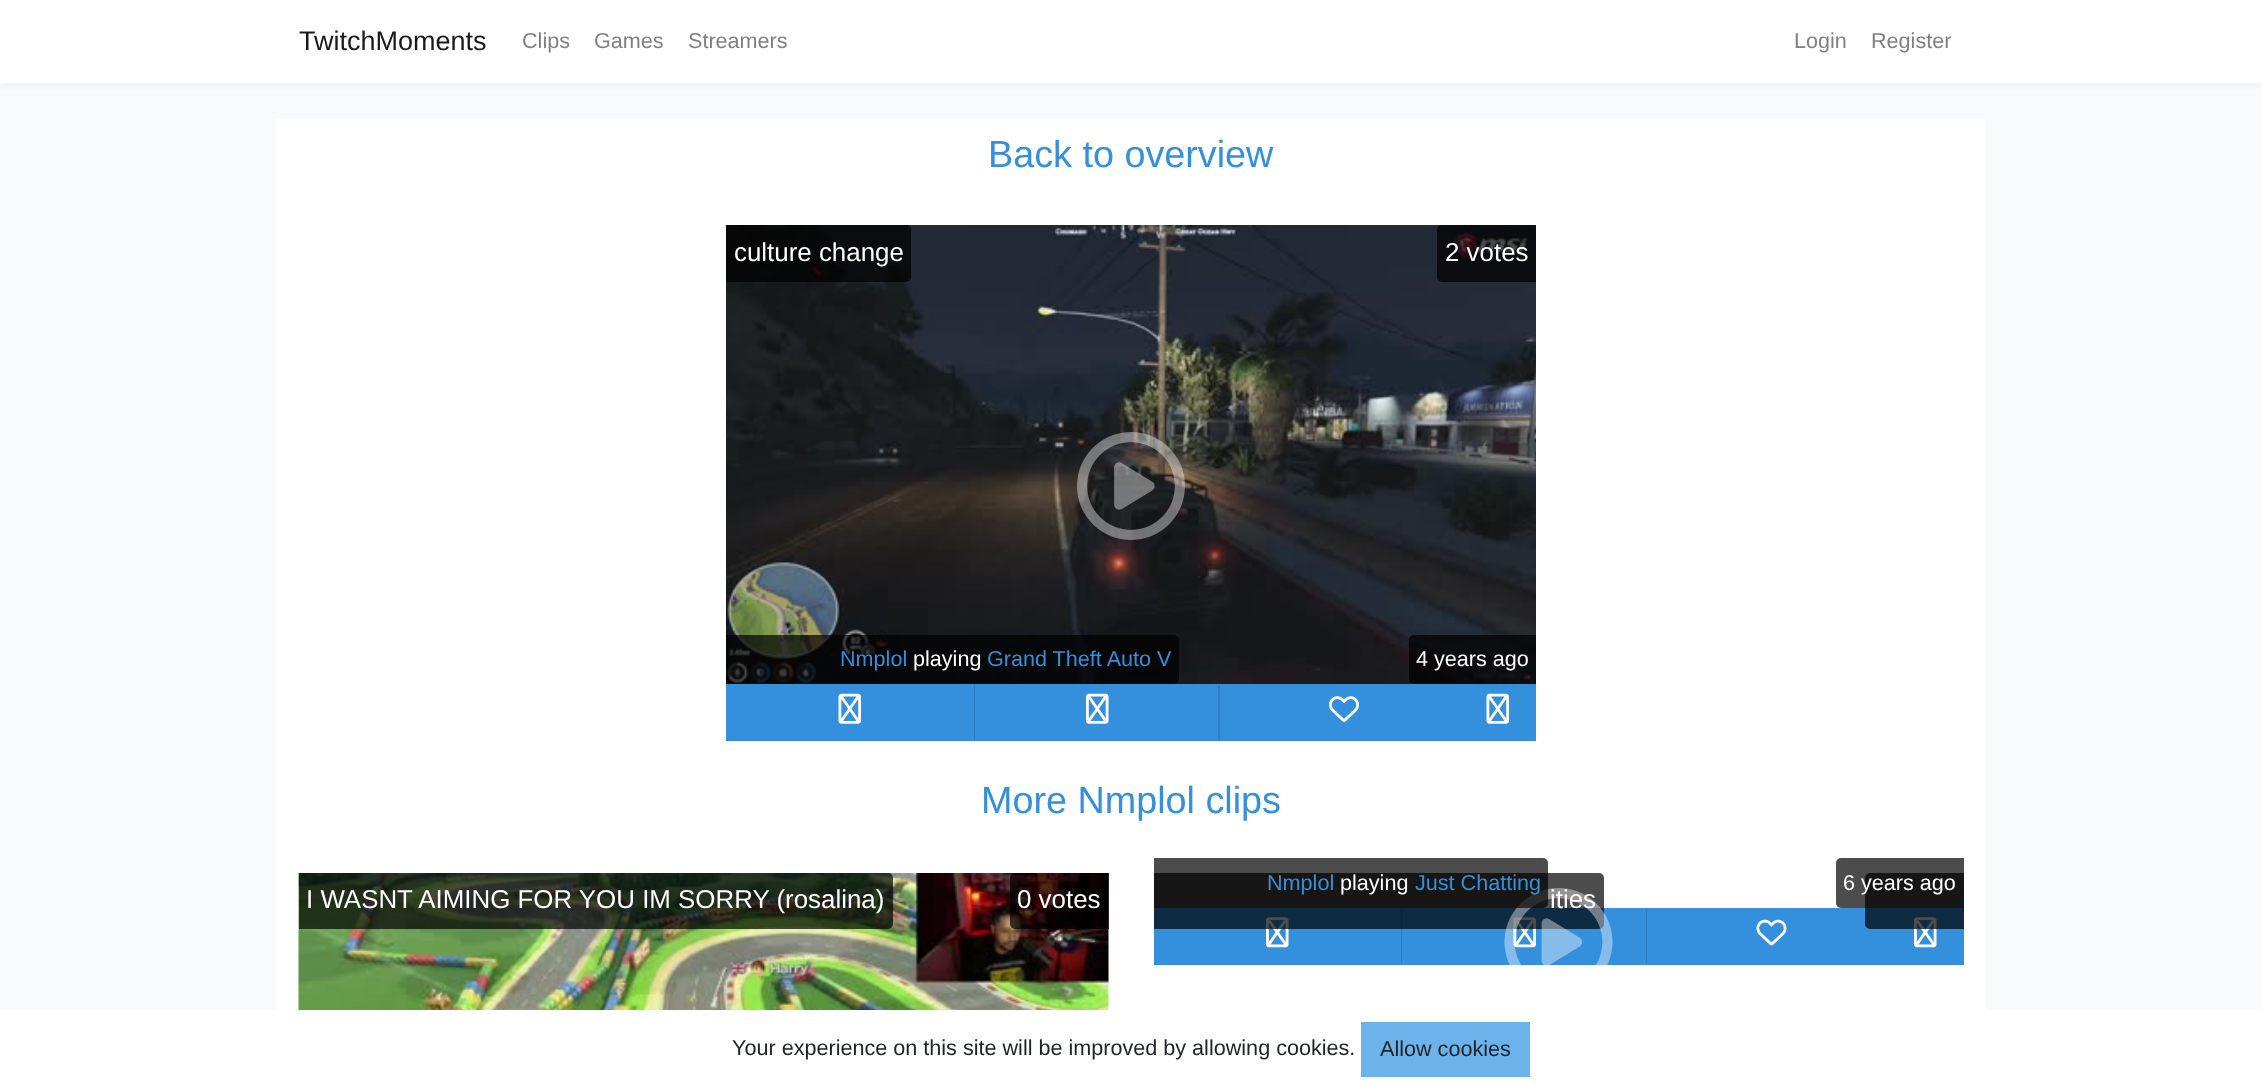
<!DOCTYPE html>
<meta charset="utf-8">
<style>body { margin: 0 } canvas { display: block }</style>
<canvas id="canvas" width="2262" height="1088"></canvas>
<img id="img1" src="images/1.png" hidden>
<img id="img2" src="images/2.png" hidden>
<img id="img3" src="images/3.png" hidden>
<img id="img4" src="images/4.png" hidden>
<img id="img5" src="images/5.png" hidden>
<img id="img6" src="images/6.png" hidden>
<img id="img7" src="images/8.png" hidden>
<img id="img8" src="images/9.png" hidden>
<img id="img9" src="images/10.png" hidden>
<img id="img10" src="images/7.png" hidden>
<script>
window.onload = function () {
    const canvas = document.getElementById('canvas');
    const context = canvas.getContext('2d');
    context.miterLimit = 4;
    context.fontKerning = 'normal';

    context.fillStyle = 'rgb(248, 250, 252)';
    context.fillRect(0, 0, 2262, 1088);
    context.fillStyle = 'rgba(0, 0, 0, 0.04)';
    context.filter = 'blur(3px)';
    context.beginPath();
    context.rect(0, 3, 2262, 83);
    context.fill();
    context.filter = 'none';
    context.fillStyle = 'rgb(255, 255, 255)';
    context.fillRect(0, 0, 2262, 83);
    context.fillRect(276, 119, 1710, 891);
    context.drawImage(document.getElementById('img1'), 726, 225, 810, 459);
    context.fillStyle = 'rgba(0, 0, 0, 0.7)';
    context.beginPath();
    context.roundRect(726, 225, 185, 57, [0, 5, 5, 0]);
    context.fill();
    context.beginPath();
    context.roundRect(1437, 225, 99, 57, [5, 0, 0, 5]);
    context.fill();
    context.drawImage(document.getElementById('img2'), 1077, 432, 108, 108);
    context.beginPath();
    context.roundRect(726, 635, 453, 49, [0, 5, 5, 0]);
    context.fill();
    context.beginPath();
    context.roundRect(1409, 635, 127, 49, [5, 0, 0, 5]);
    context.fill();
    context.fillStyle = 'rgb(52, 144, 220)';
    context.fillRect(726, 684, 810, 57);
    context.drawImage(document.getElementById('img3'), 838, 693, 23, 31);
    context.fillStyle = 'rgb(46, 126, 193)';
    context.beginPath();
    context.moveTo(1220, 684);
    context.lineTo(1220, 741);
    context.lineTo(1218, 740);
    context.lineTo(1218, 686);
    context.closePath();
    context.fill();
    context.fillStyle = 'rgb(52, 144, 220)';
    context.beginPath();
    context.moveTo(1220, 741);
    context.lineTo(974, 741);
    context.lineTo(975, 740);
    context.lineTo(1218, 740);
    context.closePath();
    context.fill();
    context.fillStyle = 'rgb(46, 126, 193)';
    context.beginPath();
    context.moveTo(974, 741);
    context.lineTo(974, 684);
    context.lineTo(975, 686);
    context.lineTo(975, 740);
    context.closePath();
    context.fill();
    context.drawImage(document.getElementById('img4'), 1086, 693, 23, 31);
    context.drawImage(document.getElementById('img5'), 1329, 696, 30, 26);
    context.drawImage(document.getElementById('img3'), 1486, 693, 23, 31);
    context.drawImage(document.getElementById('img6'), 298, 873, 811, 137);
    context.fillStyle = 'rgba(0, 0, 0, 0.7)';
    context.beginPath();
    context.roundRect(299, 873, 594, 56, [0, 5, 5, 0]);
    context.fill();
    context.beginPath();
    context.roundRect(1010, 873, 99, 56, [5, 0, 0, 5]);
    context.fill();
    context.fillStyle = 'rgb(52, 144, 220)';
    context.fillRect(1154, 908, 810, 57);
    context.drawImage(document.getElementById('img7'), 1914, 917, 23, 31);
    context.fillStyle = 'rgba(0, 0, 0, 0.7)';
    context.beginPath();
    context.roundRect(1865, 873, 99, 56, [5, 0, 0, 5]);
    context.fill();
    context.beginPath();
    context.roundRect(1836, 858, 128, 50, [5, 0, 0, 5]);
    context.fill();
    context.drawImage(document.getElementById('img7'), 1266, 917, 23, 31);
    context.fillStyle = 'rgb(46, 126, 193)';
    context.beginPath();
    context.moveTo(1647, 908);
    context.lineTo(1647, 964);
    context.lineTo(1646, 963);
    context.lineTo(1646, 909);
    context.closePath();
    context.fill();
    context.fillStyle = 'rgb(52, 144, 220)';
    context.beginPath();
    context.moveTo(1647, 964);
    context.lineTo(1401, 964);
    context.lineTo(1402, 963);
    context.lineTo(1646, 963);
    context.closePath();
    context.fill();
    context.fillStyle = 'rgb(46, 126, 193)';
    context.beginPath();
    context.moveTo(1401, 964);
    context.lineTo(1401, 908);
    context.lineTo(1402, 909);
    context.lineTo(1402, 963);
    context.closePath();
    context.fill();
    context.drawImage(document.getElementById('img8'), 1513, 917, 23, 31);
    context.fillStyle = 'rgba(0, 0, 0, 0.7)';
    context.beginPath();
    context.roundRect(1154, 873, 450, 56, [0, 5, 5, 0]);
    context.fill();
    context.drawImage(document.getElementById('img9'), 1756, 919, 31, 27);
    context.fillStyle = 'rgb(255, 255, 255)';
    context.fillRect(0, 1010, 2262, 78);
    context.fillStyle = 'rgb(108, 178, 235)';
    context.fillRect(1361, 1022, 169, 55);
    context.font = '27px Liberation Sans';
    context.fillStyle = 'rgb(26, 26, 26)';
    context.fillText('TwitchMoments', 299, 50);
    context.font = '21.6px Liberation Sans';
    context.fillStyle = 'rgb(128, 128, 128)';
    context.fillText('Clips', 522, 48);
    context.fillText('Games', 594, 48);
    context.fillText('Streamers', 688, 48);
    context.fillText('Login', 1794, 48);
    context.fillText('Register', 1871, 48);
    context.font = '37.75px Liberation Sans';
    context.fillStyle = 'rgb(52, 144, 220)';
    context.fillText('Back to overview', 988, 167);
    context.font = '25.9px Liberation Sans';
    context.fillStyle = 'rgb(255, 255, 255)';
    context.fillText('culture change', 734, 261);
    context.fillText('2 votes', 1445, 261);
    context.font = '21.6px Liberation Sans';
    context.fillStyle = 'rgb(52, 144, 220)';
    context.fillText('Nmplol', 840, 666);
    context.fillStyle = 'rgb(255, 255, 255)';
    context.fillText('playing', 913, 666);
    context.fillStyle = 'rgb(52, 144, 220)';
    context.fillText('Grand Theft Auto V', 987, 666);
    context.fillStyle = 'rgb(255, 255, 255)';
    context.fillText('4 years ago', 1416, 666);
    context.font = '37.75px Liberation Sans';
    context.fillStyle = 'rgb(52, 144, 220)';
    context.fillText('More Nmplol clips', 981, 813);
    context.font = '25.9px Liberation Sans';
    context.fillStyle = 'rgb(255, 255, 255)';
    context.fillText('I WASNT AIMING FOR YOU IM SORRY (rosalina)', 306, 908);
    context.fillText('0 votes', 1017, 908);
    context.font = '21.6px Liberation Sans';
    context.fillText('6 years ago', 1843, 890);
    context.font = '25.9px Liberation Sans';
    context.fillText('ities', 1550, 908);
    context.drawImage(document.getElementById('img10'), 1504, 888, 109, 77);
    context.fillStyle = 'rgba(0, 0, 0, 0.7)';
    context.beginPath();
    context.roundRect(1154, 858, 394, 50, [0, 5, 5, 0]);
    context.fill();
    context.font = '21.6px Liberation Sans';
    context.fillStyle = 'rgb(52, 144, 220)';
    context.fillText('Just Chatting', 1415, 890);
    context.fillStyle = 'rgb(255, 255, 255)';
    context.fillText('playing', 1340, 890);
    context.fillStyle = 'rgb(52, 144, 220)';
    context.fillText('Nmplol', 1267, 890);
    context.fillStyle = 'rgb(33, 37, 41)';
    context.fillText('Your experience on this site will be improved by allowing cookies.', 732, 1055);
    context.fillText('Allow cookies', 1380, 1056);
};
</script>
